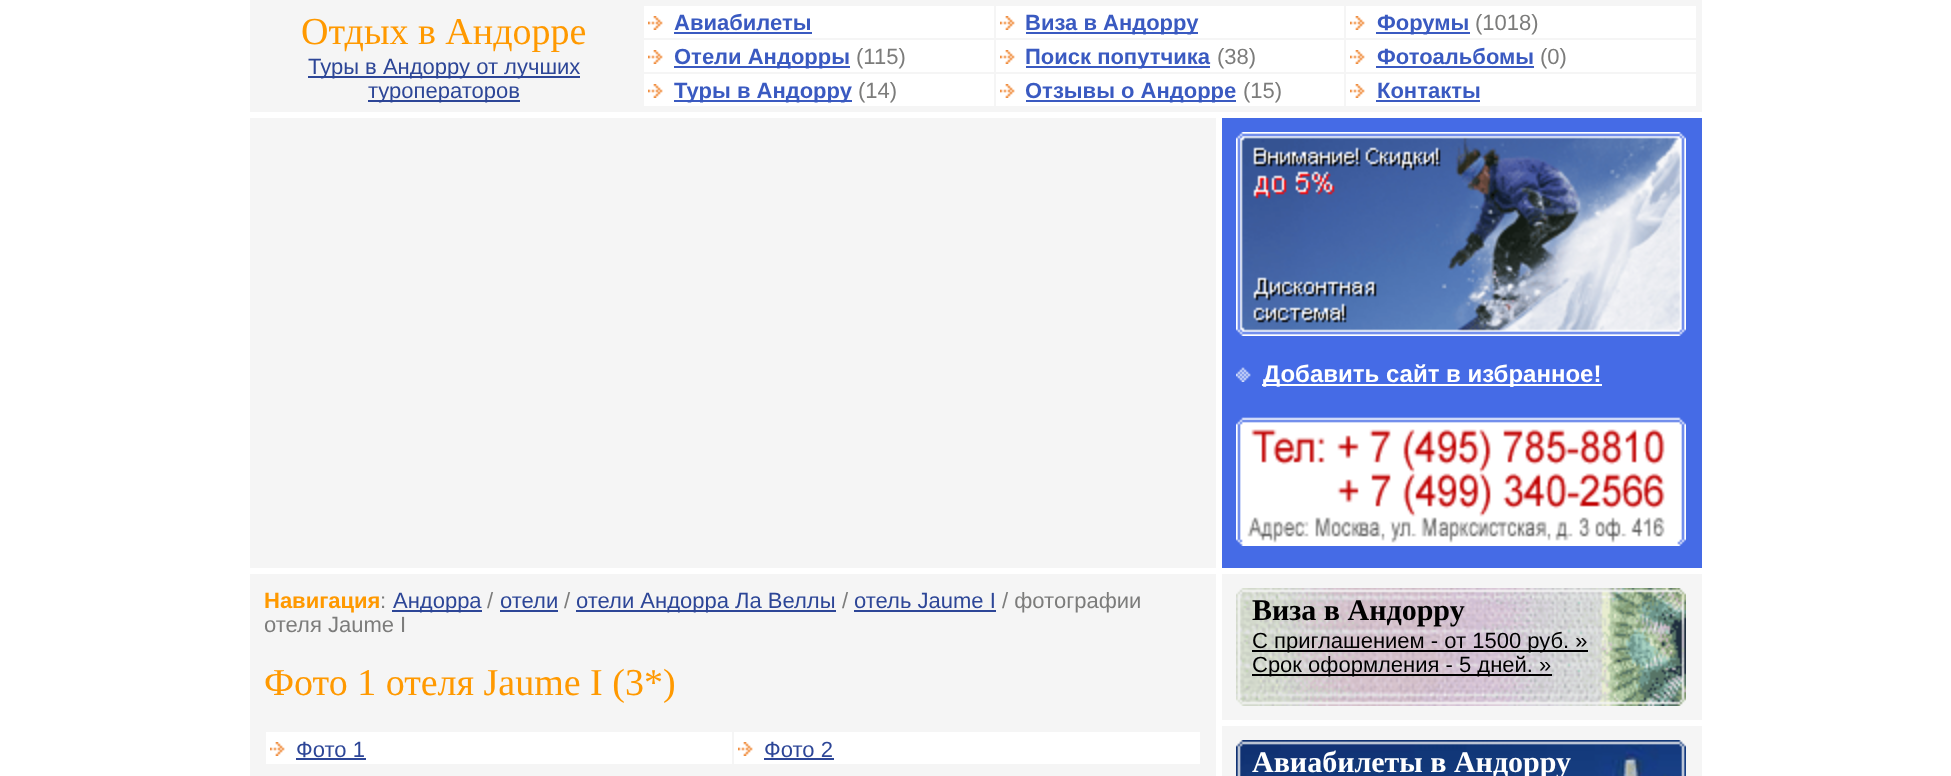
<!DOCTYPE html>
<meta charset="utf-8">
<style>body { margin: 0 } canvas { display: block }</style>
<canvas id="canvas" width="1951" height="776"></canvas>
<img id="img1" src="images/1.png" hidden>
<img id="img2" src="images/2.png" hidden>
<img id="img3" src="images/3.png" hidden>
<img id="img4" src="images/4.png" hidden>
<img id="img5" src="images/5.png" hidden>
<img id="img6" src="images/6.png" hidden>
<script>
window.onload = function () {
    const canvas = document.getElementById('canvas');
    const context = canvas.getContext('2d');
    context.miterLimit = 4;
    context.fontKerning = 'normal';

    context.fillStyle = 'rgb(255, 255, 255)';
    context.fillRect(0, 0, 1951, 776);
    context.fillStyle = 'rgb(245, 245, 245)';
    context.fillRect(250, 0, 1452, 112);
    context.fillStyle = 'rgb(45, 70, 151)';
    context.fillRect(308, 76, 272, 2);
    context.fillRect(368, 100, 152, 2);
    context.fillStyle = 'rgb(255, 255, 255)';
    context.fillRect(644, 6, 350, 32);
    context.drawImage(document.getElementById('img1'), 648, 16, 15, 14);
    context.fillStyle = 'rgb(58, 90, 193)';
    context.fillRect(674, 32, 138, 2);
    context.fillStyle = 'rgb(255, 255, 255)';
    context.fillRect(996, 6, 348, 32);
    context.drawImage(document.getElementById('img1'), 1000, 16, 15, 14);
    context.fillStyle = 'rgb(58, 90, 193)';
    context.fillRect(1026, 32, 172, 2);
    context.fillStyle = 'rgb(255, 255, 255)';
    context.fillRect(1346, 6, 350, 32);
    context.drawImage(document.getElementById('img1'), 1350, 16, 15, 14);
    context.fillStyle = 'rgb(58, 90, 193)';
    context.fillRect(1376, 32, 94, 2);
    context.fillStyle = 'rgb(255, 255, 255)';
    context.fillRect(644, 40, 350, 32);
    context.drawImage(document.getElementById('img1'), 648, 50, 15, 14);
    context.fillStyle = 'rgb(58, 90, 193)';
    context.fillRect(674, 66, 176, 2);
    context.fillStyle = 'rgb(255, 255, 255)';
    context.fillRect(996, 40, 348, 32);
    context.drawImage(document.getElementById('img1'), 1000, 50, 15, 14);
    context.fillStyle = 'rgb(58, 90, 193)';
    context.fillRect(1026, 66, 184, 2);
    context.fillStyle = 'rgb(255, 255, 255)';
    context.fillRect(1346, 40, 350, 32);
    context.drawImage(document.getElementById('img1'), 1350, 50, 15, 14);
    context.fillStyle = 'rgb(58, 90, 193)';
    context.fillRect(1376, 66, 158, 2);
    context.fillStyle = 'rgb(255, 255, 255)';
    context.fillRect(644, 74, 350, 32);
    context.drawImage(document.getElementById('img1'), 648, 84, 15, 14);
    context.fillStyle = 'rgb(58, 90, 193)';
    context.fillRect(674, 100, 178, 2);
    context.fillStyle = 'rgb(255, 255, 255)';
    context.fillRect(996, 74, 348, 32);
    context.drawImage(document.getElementById('img1'), 1000, 84, 15, 14);
    context.fillStyle = 'rgb(58, 90, 193)';
    context.fillRect(1026, 100, 210, 2);
    context.fillStyle = 'rgb(255, 255, 255)';
    context.fillRect(1346, 74, 350, 32);
    context.drawImage(document.getElementById('img1'), 1350, 84, 15, 14);
    context.fillStyle = 'rgb(58, 90, 193)';
    context.fillRect(1376, 100, 104, 2);
    context.fillStyle = 'rgb(245, 245, 245)';
    context.fillRect(250, 118, 966, 450);
    context.fillStyle = 'rgb(69, 107, 230)';
    context.fillRect(1222, 118, 480, 450);
    context.drawImage(document.getElementById('img2'), 1236, 132, 450, 204);
    context.drawImage(document.getElementById('img3'), 1236, 367, 15, 15);
    context.fillStyle = 'rgb(255, 255, 255)';
    context.fillRect(1262, 384, 340, 2);
    context.drawImage(document.getElementById('img4'), 1236, 417, 450, 129);
    context.fillStyle = 'rgb(245, 245, 245)';
    context.fillRect(250, 574, 966, 202);
    context.fillStyle = 'rgb(45, 70, 151)';
    context.fillRect(392, 610, 90, 2);
    context.fillRect(500, 610, 58, 2);
    context.fillRect(576, 610, 260, 2);
    context.fillRect(854, 610, 142, 2);
    context.fillStyle = 'rgb(255, 255, 255)';
    context.fillRect(266, 732, 466, 32);
    context.drawImage(document.getElementById('img1'), 270, 742, 15, 14);
    context.fillStyle = 'rgb(45, 70, 151)';
    context.fillRect(296, 758, 70, 2);
    context.fillStyle = 'rgb(255, 255, 255)';
    context.fillRect(734, 732, 466, 32);
    context.drawImage(document.getElementById('img1'), 738, 742, 15, 14);
    context.fillStyle = 'rgb(45, 70, 151)';
    context.fillRect(764, 758, 70, 2);
    context.fillStyle = 'rgb(245, 245, 245)';
    context.fillRect(1222, 574, 480, 202);
    context.drawImage(document.getElementById('img5'), 1236, 588, 450, 118);
    context.fillStyle = 'rgb(0, 0, 0)';
    context.fillRect(1252, 650, 336, 2);
    context.fillRect(1252, 674, 300, 2);
    context.fillStyle = 'rgb(255, 255, 255)';
    context.fillRect(1222, 720, 480, 6);
    context.drawImage(document.getElementById('img6'), 1236, 740, 450, 36);
    context.font = '38px Liberation Serif';
    context.fillStyle = 'rgb(255, 153, 0)';
    context.fillText('Отдых в Андорре', 301, 44);
    context.font = '22px Liberation Sans';
    context.fillStyle = 'rgb(45, 70, 151)';
    context.fillText('Туры в Андорру от лучших', 308, 74);
    context.fillText('туроператоров', 368, 98);
    context.font = 'bold 22px Liberation Sans';
    context.fillStyle = 'rgb(58, 90, 193)';
    context.fillText('Авиабилеты', 674, 30);
    context.fillText('Виза в Андорру', 1025, 30);
    context.fillText('Форумы', 1377, 30);
    context.font = '22px Liberation Sans';
    context.fillStyle = 'rgb(124, 124, 123)';
    context.fillText('(1018)', 1475, 30);
    context.font = 'bold 22px Liberation Sans';
    context.fillStyle = 'rgb(58, 90, 193)';
    context.fillText('Отели Андорры', 674, 64);
    context.font = '22px Liberation Sans';
    context.fillStyle = 'rgb(124, 124, 123)';
    context.fillText('(115)', 856, 64);
    context.font = 'bold 22px Liberation Sans';
    context.fillStyle = 'rgb(58, 90, 193)';
    context.fillText('Поиск попутчика', 1025, 64);
    context.font = '22px Liberation Sans';
    context.fillStyle = 'rgb(124, 124, 123)';
    context.fillText('(38)', 1217, 64);
    context.font = 'bold 22px Liberation Sans';
    context.fillStyle = 'rgb(58, 90, 193)';
    context.fillText('Фотоальбомы', 1377, 64);
    context.font = '22px Liberation Sans';
    context.fillStyle = 'rgb(124, 124, 123)';
    context.fillText('(0)', 1540, 64);
    context.font = 'bold 22px Liberation Sans';
    context.fillStyle = 'rgb(58, 90, 193)';
    context.fillText('Туры в Андорру', 674, 98);
    context.font = '22px Liberation Sans';
    context.fillStyle = 'rgb(124, 124, 123)';
    context.fillText('(14)', 858, 98);
    context.font = 'bold 22px Liberation Sans';
    context.fillStyle = 'rgb(58, 90, 193)';
    context.fillText('Отзывы о Андорре', 1025, 98);
    context.font = '22px Liberation Sans';
    context.fillStyle = 'rgb(124, 124, 123)';
    context.fillText('(15)', 1243, 98);
    context.font = 'bold 22px Liberation Sans';
    context.fillStyle = 'rgb(58, 90, 193)';
    context.fillText('Контакты', 1377, 98);
    context.font = 'bold 24px Liberation Sans';
    context.fillStyle = 'rgb(255, 255, 255)';
    context.fillText('Добавить сайт в избранное!', 1263, 382);
    context.font = 'bold 22px Liberation Sans';
    context.fillStyle = 'rgb(255, 153, 0)';
    context.fillText('Навигация', 264, 608);
    context.font = '22px Liberation Sans';
    context.fillStyle = 'rgb(124, 124, 123)';
    context.fillText(':', 380, 608);
    context.fillStyle = 'rgb(45, 70, 151)';
    context.fillText('Андорра', 393, 608);
    context.fillStyle = 'rgb(124, 124, 123)';
    context.fillText('/', 487, 608);
    context.fillStyle = 'rgb(45, 70, 151)';
    context.fillText('отели', 500, 608);
    context.fillStyle = 'rgb(124, 124, 123)';
    context.fillText('/', 564, 608);
    context.fillStyle = 'rgb(45, 70, 151)';
    context.fillText('отели Андорра Ла Веллы', 576, 608);
    context.fillStyle = 'rgb(124, 124, 123)';
    context.fillText('/', 842, 608);
    context.fillStyle = 'rgb(45, 70, 151)';
    context.fillText('отель Jaume I', 854, 608);
    context.fillStyle = 'rgb(124, 124, 123)';
    context.fillText('/ фотографии', 1002, 608);
    context.fillText('отеля Jaume I', 264, 632);
    context.font = '38px Liberation Serif';
    context.fillStyle = 'rgb(255, 153, 0)';
    context.fillText('Фото 1 отеля Jaume I (3*)', 264, 695);
    context.font = '22px Liberation Sans';
    context.fillStyle = 'rgb(45, 70, 151)';
    context.fillText('Фото 1', 296, 757);
    context.fillText('Фото 2', 764, 757);
    context.font = 'bold 30px Liberation Serif';
    context.fillStyle = 'rgb(0, 0, 0)';
    context.fillText('Виза в Андорру', 1252, 620);
    context.font = '22px Liberation Sans';
    context.fillText('С приглашением - от 1500 руб. »', 1252, 648);
    context.fillText('Срок оформления - 5 дней. »', 1252, 672);
    context.font = 'bold 30px Liberation Serif';
    context.fillStyle = 'rgb(255, 255, 255)';
    context.fillText('Авиабилеты в Андорру', 1252, 772);
};
</script>
